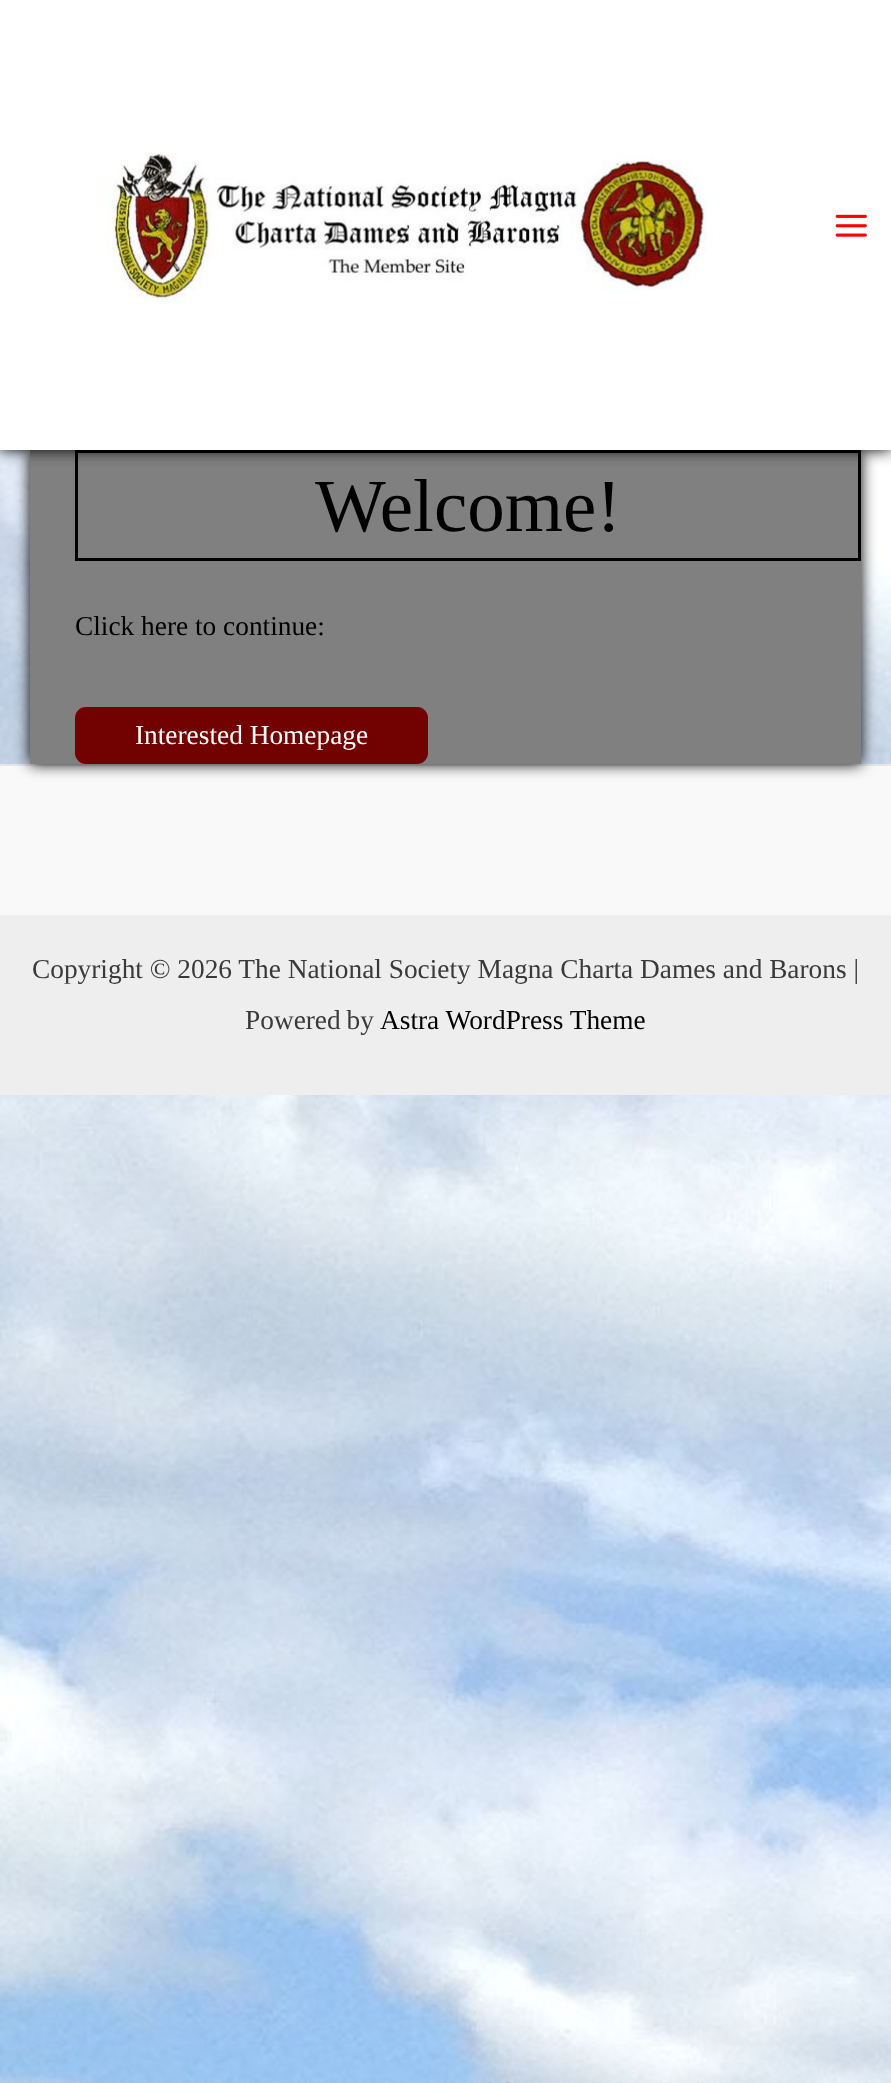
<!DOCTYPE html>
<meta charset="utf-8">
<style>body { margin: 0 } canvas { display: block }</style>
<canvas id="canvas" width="891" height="2083"></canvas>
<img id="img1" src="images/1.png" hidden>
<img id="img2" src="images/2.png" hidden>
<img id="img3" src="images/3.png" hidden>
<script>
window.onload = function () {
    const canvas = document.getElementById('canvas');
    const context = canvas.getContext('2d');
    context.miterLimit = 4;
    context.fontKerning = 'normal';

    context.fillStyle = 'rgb(255, 255, 255)';
    context.fillRect(0, 0, 891, 2083);
    context.drawImage(document.getElementById('img1'), 0, 450, 891, 1633);
    context.fillStyle = 'rgb(249, 249, 249)';
    context.fillRect(0, 766, 891, 149);
    context.fillStyle = 'rgb(230, 230, 230)';
    context.fillRect(0, 764, 891, 2);
    context.fillStyle = 'rgb(0, 0, 0)';
    context.filter = 'blur(7.5px)';
    context.beginPath();
    context.rect(30, 450, 831, 314);
    context.fill();
    context.filter = 'none';
    context.fillStyle = 'rgb(128, 128, 128)';
    context.fillRect(30, 450, 831, 314);
    context.strokeStyle = 'rgb(0, 0, 0)';
    context.lineWidth = 3;
    context.strokeRect(76.5, 451.5, 783, 108);
    context.fillStyle = 'rgb(0, 0, 0)';
    context.filter = 'blur(7.5px)';
    context.beginPath();
    context.rect(0, 0, 891, 450);
    context.fill();
    context.filter = 'none';
    context.fillStyle = 'rgb(255, 255, 255)';
    context.fillRect(0, 0, 891, 450);
    context.drawImage(document.getElementById('img2'), 105, 153, 602, 152);
    context.drawImage(document.getElementById('img3'), 835, 214, 32, 23);
    context.fillStyle = 'rgb(114, 1, 1)';
    context.beginPath();
    context.roundRect(75, 707, 353, 57, 11);
    context.fill();
    context.fillStyle = 'rgb(238, 238, 238)';
    context.fillRect(0, 915, 891, 180);
    context.font = '75px Liberation Serif';
    context.fillStyle = 'rgb(0, 0, 0)';
    context.fillText('Welcome!', 315, 531);
    context.font = '27.35px Liberation Serif';
    context.fillText('Click here to continue:', 75, 635);
    context.fillStyle = 'rgb(255, 255, 255)';
    context.fillText('Interested Homepage', 135, 744);
    context.fillStyle = 'rgb(58, 58, 58)';
    context.fillText('Copyright © 2026 The National Society Magna Charta Dames and Barons |', 32, 978);
    context.wordSpacing = '-1px';
    context.fillText('Powered by', 245, 1029);
    context.wordSpacing = '0px';
    context.fillStyle = 'rgb(0, 0, 0)';
    context.fillText('Astra WordPress Theme', 380, 1029);
};
</script>
